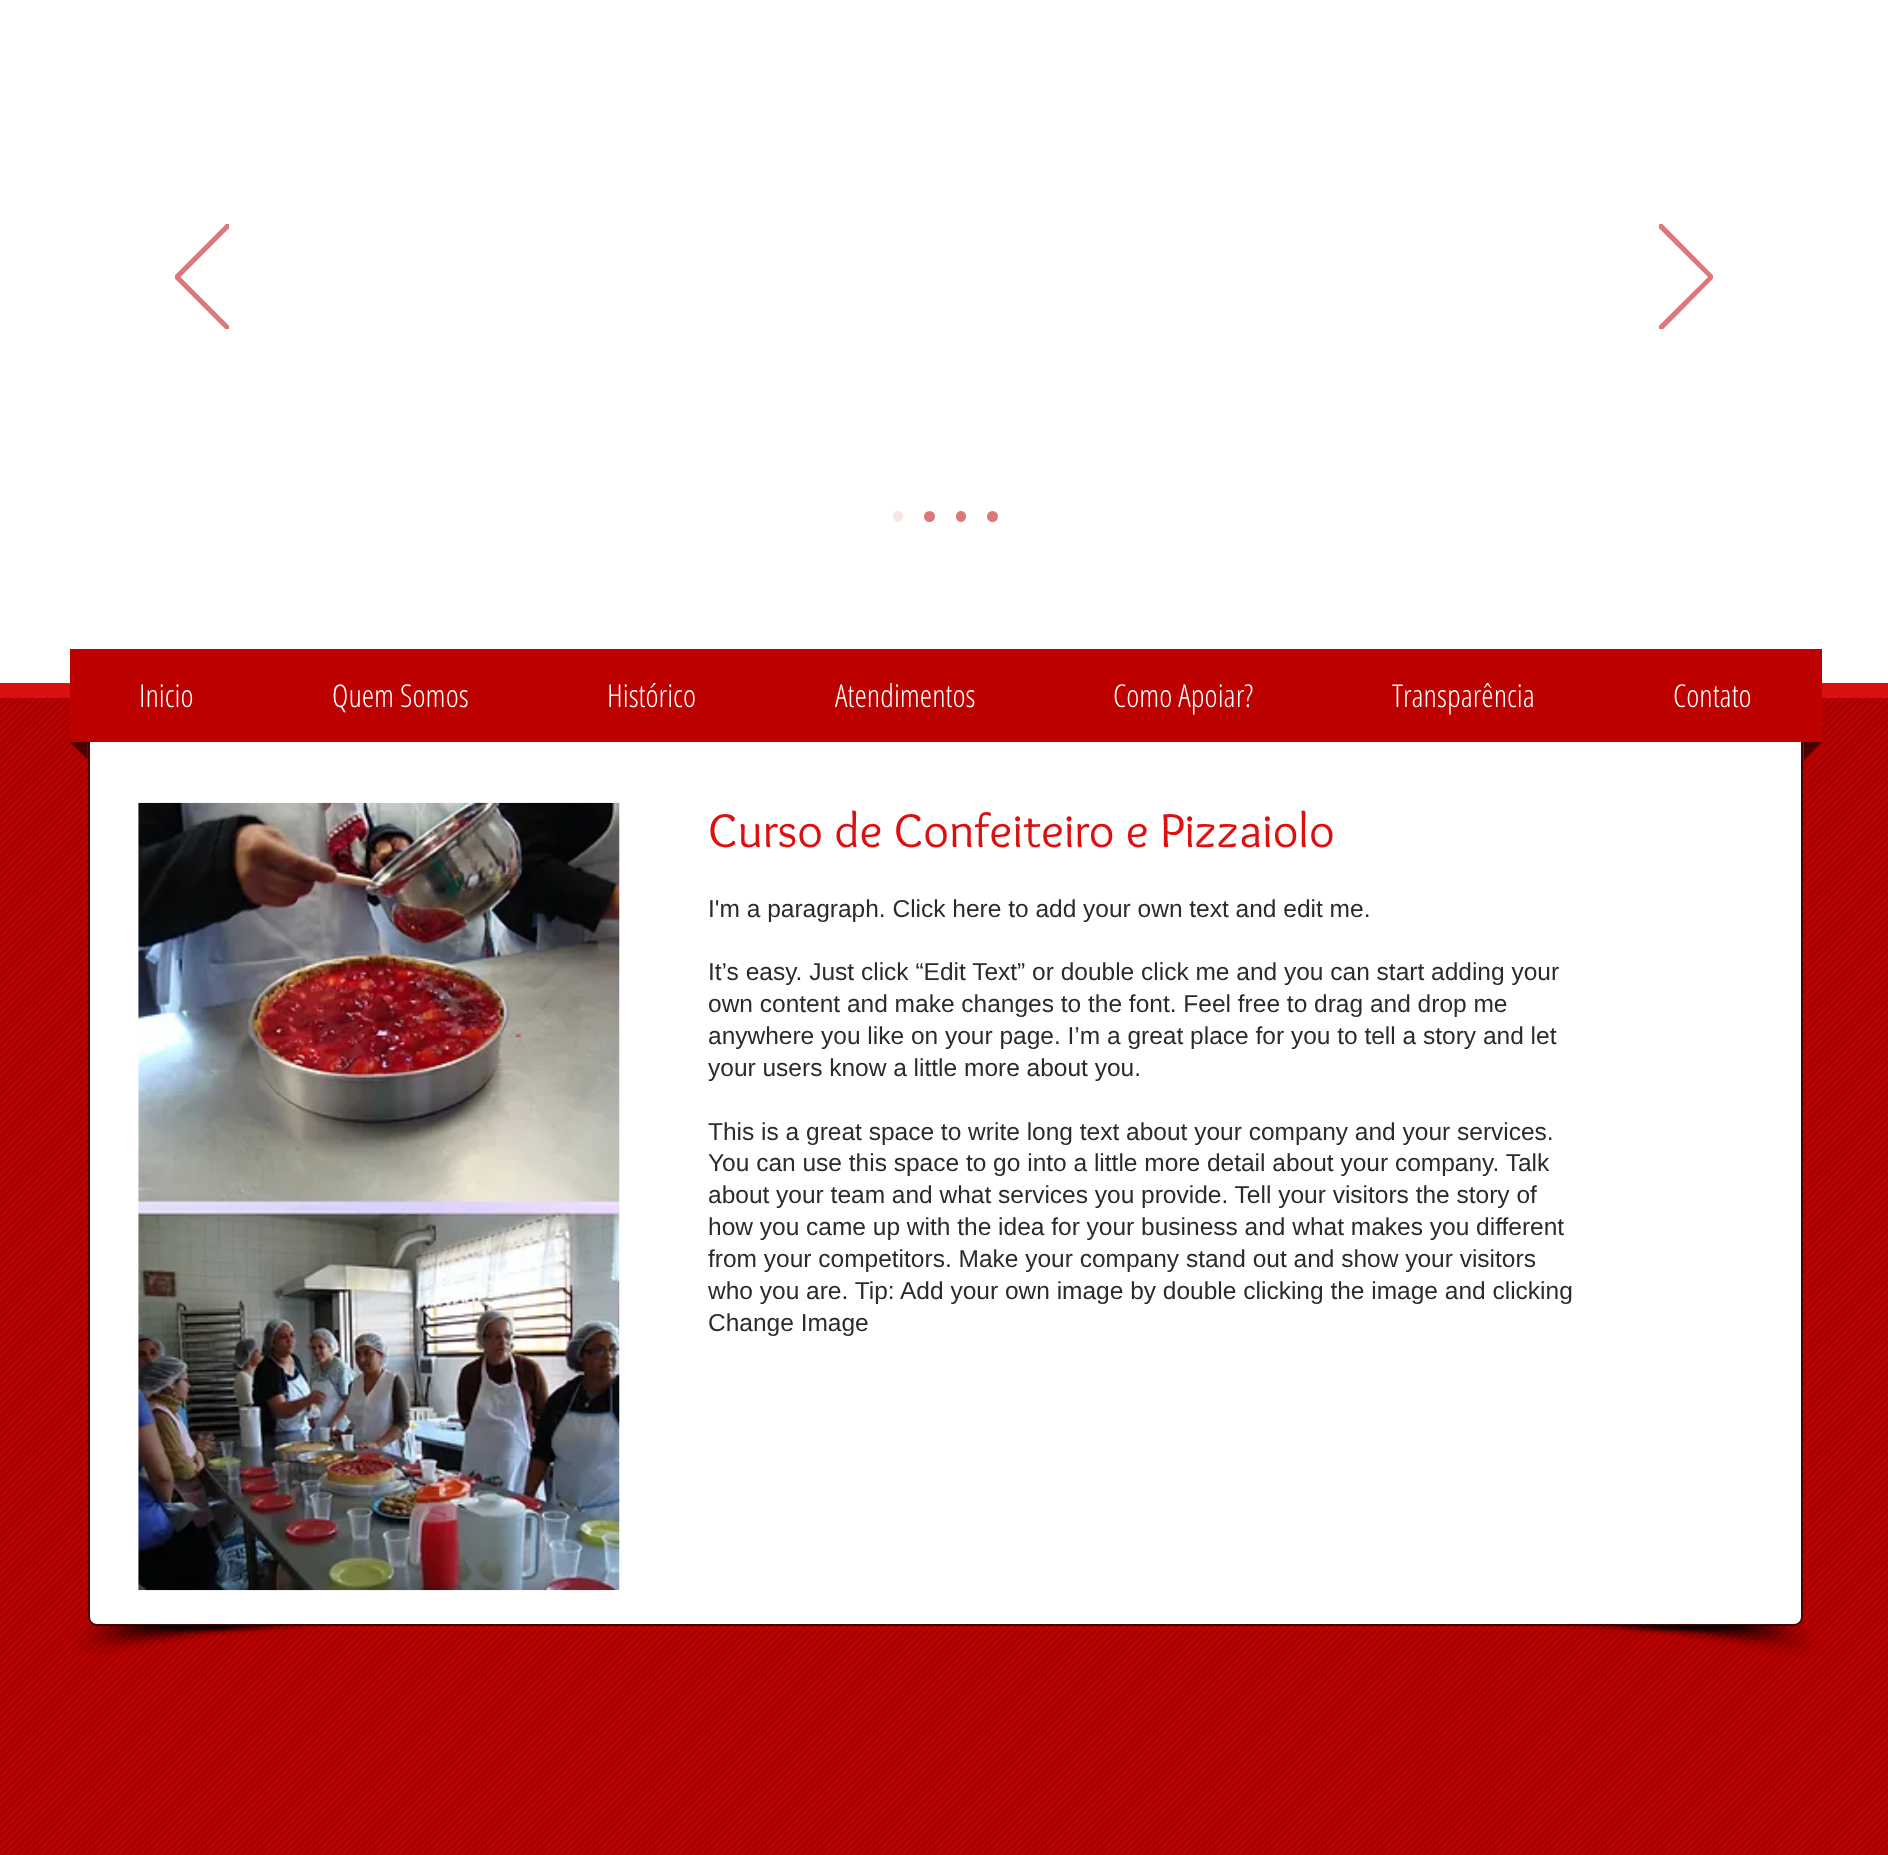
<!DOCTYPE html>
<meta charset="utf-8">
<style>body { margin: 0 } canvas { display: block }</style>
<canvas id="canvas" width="1888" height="1855"></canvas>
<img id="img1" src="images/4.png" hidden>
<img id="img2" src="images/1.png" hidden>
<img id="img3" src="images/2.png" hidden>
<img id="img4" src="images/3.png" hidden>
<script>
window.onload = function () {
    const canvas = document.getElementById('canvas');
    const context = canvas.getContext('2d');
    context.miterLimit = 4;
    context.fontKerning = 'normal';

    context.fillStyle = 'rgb(255, 255, 255)';
    context.fillRect(0, 0, 1888, 1855);
    context.save();
    context.beginPath();
    context.rect(175, 224, 54, 105);
    context.clip();
    context.beginPath();
    context.moveTo(227.5, 329.5);
    context.lineTo(175, 277);
    context.lineTo(227.5, 224.5);
    context.lineTo(229, 226.5);
    context.lineTo(178.5, 277);
    context.lineTo(229, 327.5);
    context.closePath();
    context.strokeStyle = 'rgb(221, 119, 121)';
    context.lineWidth = 2.6;
    context.stroke();
    context.restore();
    context.save();
    context.beginPath();
    context.rect(1659, 224, 54, 105);
    context.clip();
    context.beginPath();
    context.moveTo(1661, 329.5);
    context.lineTo(1713, 277);
    context.lineTo(1661, 224.5);
    context.lineTo(1659, 226.5);
    context.lineTo(1710, 277);
    context.lineTo(1659, 327.5);
    context.closePath();
    context.strokeStyle = 'rgb(221, 119, 121)';
    context.lineWidth = 2.6;
    context.stroke();
    context.restore();
    context.fillStyle = 'rgb(250, 228, 228)';
    context.beginPath();
    context.roundRect(893, 511, 10, 11, 5);
    context.fill();
    context.fillStyle = 'rgb(221, 119, 121)';
    context.beginPath();
    context.arc(929.5, 516.5, 5.5, 0, 2 * Math.PI);
    context.fill();
    context.beginPath();
    context.roundRect(956, 511, 10, 11, 5);
    context.fill();
    context.beginPath();
    context.arc(992.5, 516.5, 5.5, 0, 2 * Math.PI);
    context.fill();
    context.fillStyle = 'rgb(219, 16, 16)';
    context.fillRect(0, 683, 1888, 15);
    context.drawImage(document.getElementById('img1'), 0, 698, 1888, 1157);
    context.fillStyle = 'rgb(255, 255, 255)';
    context.beginPath();
    context.roundRect(89, 734, 1713, 891, 8);
    context.fill();
    context.strokeStyle = 'rgb(68, 5, 6)';
    context.lineWidth = 2;
    context.stroke();
    context.fillStyle = 'rgb(189, 0, 0)';
    context.fillRect(70, 649, 1752, 93);
    context.fillStyle = 'rgb(77, 0, 0)';
    context.beginPath();
    context.moveTo(70, 742);
    context.lineTo(87.5, 742);
    context.lineTo(87.5, 759.5);
    context.closePath();
    context.fill();
    context.beginPath();
    context.moveTo(1804, 742);
    context.lineTo(1822, 742);
    context.lineTo(1804, 759.5);
    context.closePath();
    context.fill();
    context.drawImage(document.getElementById('img2'), 73, 1625, 260, 31);
    context.drawImage(document.getElementById('img3'), 1557, 1625, 260, 31);
    context.drawImage(document.getElementById('img4'), 138, 802, 482, 789);
    context.font = '300 31.5px Open Sans Condensed';
    context.fillStyle = 'rgb(255, 255, 255)';
    context.fillText('Inicio', 139, 707);
    context.fillText('Quem Somos', 332, 707);
    context.fillText('Histórico', 607, 707);
    context.fillText('Atendimentos', 835, 707);
    context.fillText('Como Apoiar?', 1113, 707);
    context.fillText('Transparência', 1392, 707);
    context.fillText('Contato', 1673, 707);
    context.font = '49px Overlock';
    context.fillStyle = 'rgb(219, 16, 16)';
    context.fillText('Curso de Confeiteiro e Pizzaiolo', 708, 847);
    context.font = '24.5px Liberation Sans';
    context.fillStyle = 'rgb(43, 43, 43)';
    context.fillText('I\'m a paragraph. Click here to add your own text and edit me.', 708, 917);
    context.fillText('It’s easy. Just click “Edit Text” or double click me and you can start adding your', 708, 980);
    context.fillText('own content and make changes to the font. Feel free to drag and drop me', 708, 1012);
    context.fillText('anywhere you like on your page. I’m a great place for you to tell a story and let', 708, 1044);
    context.fillText('your users know a little more about you.', 708, 1076);
    context.fillText('This is a great space to write long text about your company and your services.', 708, 1140);
    context.fillText('You can use this space to go into a little more detail about your company. Talk', 708, 1171);
    context.fillText('about your team and what services you provide. Tell your visitors the story of', 708, 1203);
    context.fillText('how you came up with the idea for your business and what makes you different', 708, 1235);
    context.fillText('from your competitors. Make your company stand out and show your visitors', 708, 1267);
    context.fillText('who you are. Tip: Add your own image by double clicking the image and clicking', 708, 1299);
    context.fillText('Change Image', 708, 1331);
};
</script>
